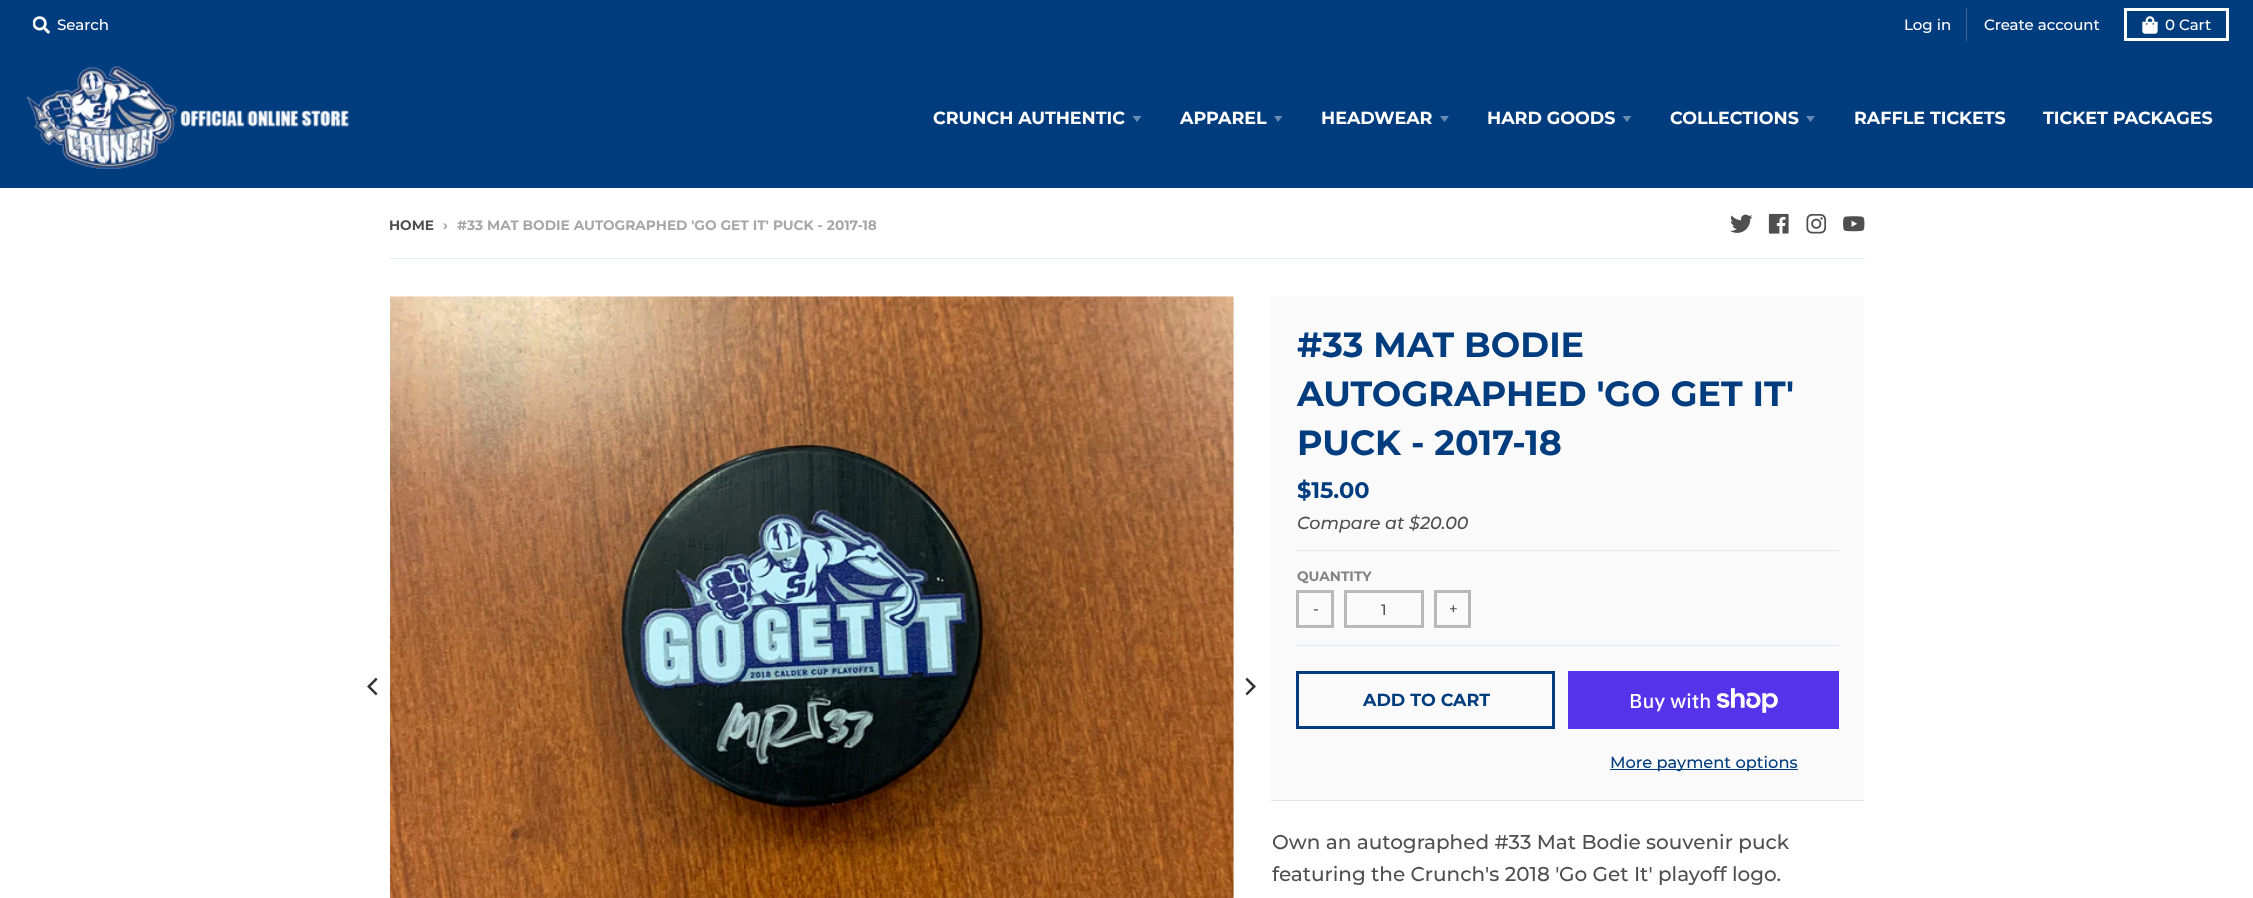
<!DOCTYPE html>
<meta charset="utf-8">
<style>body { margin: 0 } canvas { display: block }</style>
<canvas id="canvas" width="2253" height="898"></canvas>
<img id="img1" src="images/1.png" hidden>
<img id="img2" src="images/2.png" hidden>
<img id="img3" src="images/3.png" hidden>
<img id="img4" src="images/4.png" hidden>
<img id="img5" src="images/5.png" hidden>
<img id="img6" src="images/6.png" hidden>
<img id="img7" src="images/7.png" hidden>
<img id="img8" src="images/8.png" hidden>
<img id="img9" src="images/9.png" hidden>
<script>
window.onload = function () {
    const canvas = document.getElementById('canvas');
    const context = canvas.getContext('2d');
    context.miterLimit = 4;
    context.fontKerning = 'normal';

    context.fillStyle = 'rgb(255, 255, 255)';
    context.fillRect(0, 0, 2253, 898);
    context.fillStyle = 'rgb(1, 61, 126)';
    context.fillRect(0, 0, 2253, 188);
    context.drawImage(document.getElementById('img1'), 33, 16, 17, 18);
    context.fillStyle = 'rgb(51, 99, 151)';
    context.fillRect(1966, 8, 1, 33);
    context.strokeStyle = 'rgb(255, 255, 255)';
    context.lineWidth = 3;
    context.strokeRect(2125.5, 9.5, 102, 30);
    context.drawImage(document.getElementById('img2'), 2142, 16, 16, 18);
    context.drawImage(document.getElementById('img3'), 26, 66, 323, 103);
    context.fillStyle = 'rgb(103, 139, 178)';
    context.beginPath();
    context.moveTo(1132.5, 116);
    context.lineTo(1137, 122);
    context.lineTo(1141.5, 116);
    context.closePath();
    context.fill();
    context.beginPath();
    context.moveTo(1274, 116);
    context.lineTo(1278, 122);
    context.lineTo(1282.5, 116);
    context.closePath();
    context.fill();
    context.beginPath();
    context.moveTo(1440, 116);
    context.lineTo(1444.5, 122);
    context.lineTo(1449, 116);
    context.closePath();
    context.fill();
    context.beginPath();
    context.moveTo(1622.5, 116);
    context.lineTo(1627, 122);
    context.lineTo(1631.5, 116);
    context.closePath();
    context.fill();
    context.beginPath();
    context.moveTo(1806, 116);
    context.lineTo(1810.5, 122);
    context.lineTo(1815, 116);
    context.closePath();
    context.fill();
    context.drawImage(document.getElementById('img4'), 1730, 214, 23, 19);
    context.drawImage(document.getElementById('img5'), 1768, 213, 21, 21);
    context.drawImage(document.getElementById('img6'), 1806, 214, 21, 20);
    context.drawImage(document.getElementById('img7'), 1843, 216, 22, 16);
    context.fillStyle = 'rgb(229, 235, 242)';
    context.fillRect(390, 258, 1475, 1);
    context.fillStyle = 'rgb(51, 51, 51)';
    context.beginPath();
    context.moveTo(367, 686.5);
    context.lineTo(376, 695.5);
    context.lineTo(377.5, 693.5);
    context.lineTo(370.5, 686.5);
    context.lineTo(377.5, 679.5);
    context.lineTo(376, 677.5);
    context.closePath();
    context.fill();
    context.drawImage(document.getElementById('img8'), 390, 296, 844, 602);
    context.beginPath();
    context.moveTo(1256, 686.5);
    context.lineTo(1247, 677.5);
    context.lineTo(1245.5, 679.5);
    context.lineTo(1252.5, 686.5);
    context.lineTo(1245.5, 693.5);
    context.lineTo(1247, 695.5);
    context.closePath();
    context.fill();
    context.fillStyle = 'rgb(250, 250, 250)';
    context.fillRect(1271, 296, 593, 504);
    context.fillStyle = 'rgb(225, 231, 237)';
    context.fillRect(1271, 800, 593, 1);
    context.fillRect(1296, 550, 543, 1);
    context.fillRect(1296, 645, 543, 1);
    context.strokeStyle = 'rgb(184, 184, 184)';
    context.strokeRect(1297.5, 591.5, 35, 35);
    context.strokeRect(1345.5, 591.5, 77, 35);
    context.strokeRect(1435.5, 591.5, 34, 35);
    context.strokeStyle = 'rgb(1, 61, 126)';
    context.strokeRect(1297.5, 672.5, 256, 55);
    context.fillStyle = 'rgb(84, 51, 235)';
    context.fillRect(1568, 671, 271, 58);
    context.drawImage(document.getElementById('img9'), 1716, 688, 62, 25);
    context.fillStyle = 'rgb(1, 61, 126)';
    context.fillRect(1610, 769, 188, 1);
    context.font = '500 15px Montserrat';
    context.fillStyle = 'rgb(255, 255, 255)';
    context.fillText('Search', 57, 30);
    context.fillText('Log in', 1904, 30);
    context.fillText('Create account', 1984, 30);
    context.fillText('0 Cart', 2165, 30);
    context.font = 'bold 17.5px Montserrat';
    context.fillText('CRUNCH AUTHENTIC', 933, 124);
    context.fillText('APPAREL', 1180, 124);
    context.fillText('HEADWEAR', 1321, 124);
    context.fillText('HARD GOODS', 1487, 124);
    context.fillText('COLLECTIONS', 1670, 124);
    context.fillText('RAFFLE TICKETS', 1854, 124);
    context.fillText('TICKET PACKAGES', 2043, 124);
    context.font = 'bold 13.75px Montserrat';
    context.fillStyle = 'rgb(79, 79, 79)';
    context.fillText('HOME', 389, 230);
    context.fillStyle = 'rgb(167, 167, 167)';
    context.fillText('›', 443, 230);
    context.fillText('#33 MAT BODIE AUTOGRAPHED \'GO GET IT\' PUCK - 2017-18', 457, 230);
    context.font = 'bold 35px Montserrat';
    context.fillStyle = 'rgb(1, 61, 126)';
    context.fillText('#33 MAT BODIE', 1297, 357);
    context.fillText('AUTOGRAPHED \'GO GET IT\'', 1297, 406);
    context.fillText('PUCK - 2017-18', 1297, 455);
    context.font = 'bold 22.5px Montserrat';
    context.fillText('$15.00', 1297, 498);
    context.font = 'italic 500 17.5px Montserrat';
    context.fillStyle = 'rgb(79, 79, 79)';
    context.fillText('Compare at $20.00', 1297, 529);
    context.font = 'bold 13.75px Montserrat';
    context.fillStyle = 'rgb(131, 131, 131)';
    context.fillText('QUANTITY', 1297, 581);
    context.font = '500 15px Montserrat';
    context.fillStyle = 'rgb(79, 79, 79)';
    context.fillText('-', 1313, 614);
    context.fillText('1', 1381, 615);
    context.fillText('+', 1449, 614);
    context.font = 'bold 17.5px Montserrat';
    context.fillStyle = 'rgb(1, 61, 126)';
    context.fillText('ADD TO CART', 1363, 706);
    context.font = '500 20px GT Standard';
    context.fillStyle = 'rgb(255, 255, 255)';
    context.fillText('Buy with', 1629, 708);
    context.font = '500 16.25px Montserrat';
    context.fillStyle = 'rgb(1, 61, 126)';
    context.fillText('More payment options', 1610, 768);
    context.font = '500 20px Montserrat';
    context.fillStyle = 'rgb(79, 79, 79)';
    context.fillText('Own an autographed #33 Mat Bodie souvenir puck', 1272, 849);
    context.fillText('featuring the Crunch\'s 2018 \'Go Get It\' playoff logo.', 1272, 881);
};
</script>
